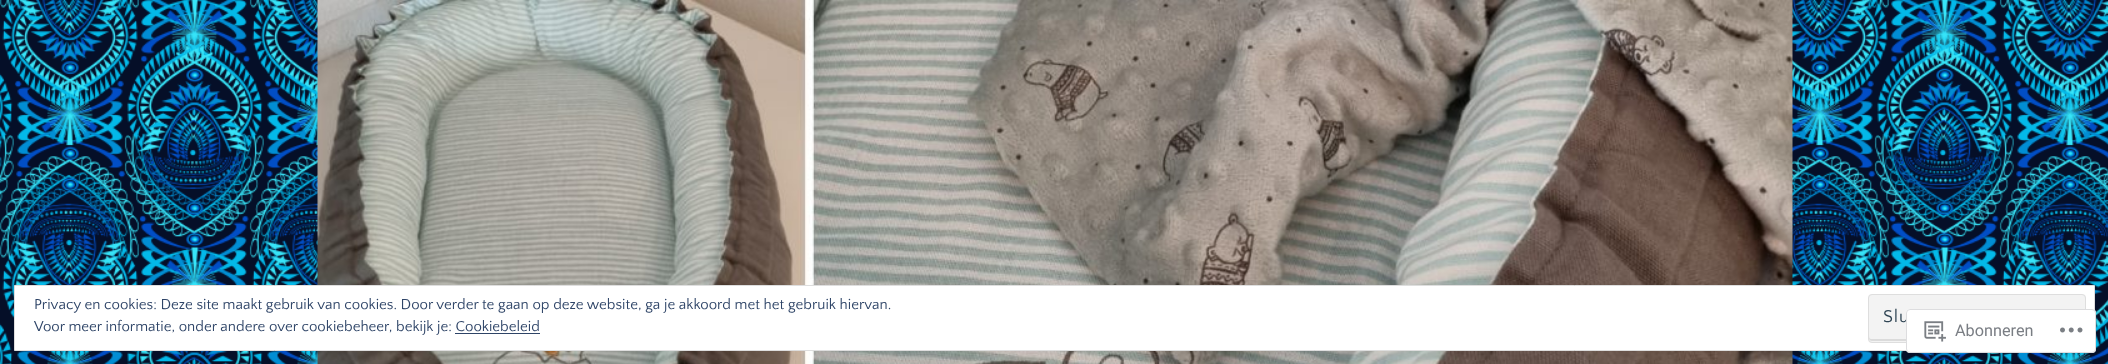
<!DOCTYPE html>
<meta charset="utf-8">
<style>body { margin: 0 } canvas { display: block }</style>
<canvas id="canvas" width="2108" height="364"></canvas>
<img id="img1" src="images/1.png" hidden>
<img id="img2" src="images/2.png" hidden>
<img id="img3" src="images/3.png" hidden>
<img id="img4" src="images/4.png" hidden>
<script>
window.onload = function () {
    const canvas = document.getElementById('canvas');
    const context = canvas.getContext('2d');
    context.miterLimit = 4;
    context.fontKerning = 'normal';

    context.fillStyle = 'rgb(255, 255, 255)';
    context.fillRect(0, 0, 2108, 364);
    context.drawImage(document.getElementById('img1'), 0, 0, 2108, 364);
    context.drawImage(document.getElementById('img2'), 317, 0, 1476, 364);
    context.beginPath();
    context.rect(14.5, 285.5, 2080, 65);
    context.fill();
    context.strokeStyle = 'rgb(222, 222, 222)';
    context.stroke();
    context.fillStyle = 'rgb(243, 243, 243)';
    context.beginPath();
    context.roundRect(1868, 294, 218, 49, 4);
    context.fill();
    context.fillStyle = 'rgb(219, 219, 219)';
    context.beginPath();
    context.moveTo(1869, 336);
    context.bezierCurveTo(1869, 338, 1869, 341, 1872, 341);
    context.lineTo(2082, 341);
    context.bezierCurveTo(2085, 341, 2085, 338, 2085, 336);
    context.bezierCurveTo(2085, 338, 2084, 339, 2082, 339);
    context.lineTo(1871, 339);
    context.bezierCurveTo(1870, 339, 1869, 338, 1869, 336);
    context.closePath();
    context.fill();
    context.beginPath();
    context.roundRect(1868.5, 294.5, 217, 48, 3.5);
    context.stroke();
    context.fillStyle = 'rgb(46, 68, 103)';
    context.fillRect(455, 333, 85, 1);
    context.font = '15px Quattrocento Sans';
    context.fillText('Privacy en cookies: Deze site maakt gebruik van cookies. Door verder te gaan op deze website, ga je akkoord met het gebruik hiervan.', 34, 309);
    context.letterSpacing = '1px';
    context.font = '18px Quattrocento Sans';
    context.fillStyle = 'rgb(46, 68, 83)';
    context.fillText('Slu', 1883, 322);
    context.letterSpacing = '0px';
    context.font = '15px Quattrocento Sans';
    context.fillStyle = 'rgb(46, 68, 103)';
    context.fillText('Voor meer informatie, onder andere over cookiebeheer, bekijk je: Cookiebeleid', 34, 331);
    context.fillStyle = 'rgba(255, 255, 255, 0.98)';
    context.beginPath();
    context.roundRect(1906, 309, 190, 44, 4);
    context.fill();
    context.beginPath();
    context.roundRect(1906.5, 309.5, 189, 43, 3.5);
    context.strokeStyle = 'rgba(220, 220, 222, 0.98)';
    context.stroke();
    context.drawImage(document.getElementById('img3'), 1924, 321, 22, 21);
    context.font = '16.25px Roboto';
    context.fillStyle = 'rgb(122, 126, 132)';
    context.fillText('Abonneren', 1955, 336);
    context.drawImage(document.getElementById('img4'), 2060, 327, 23, 6);
};
</script>
